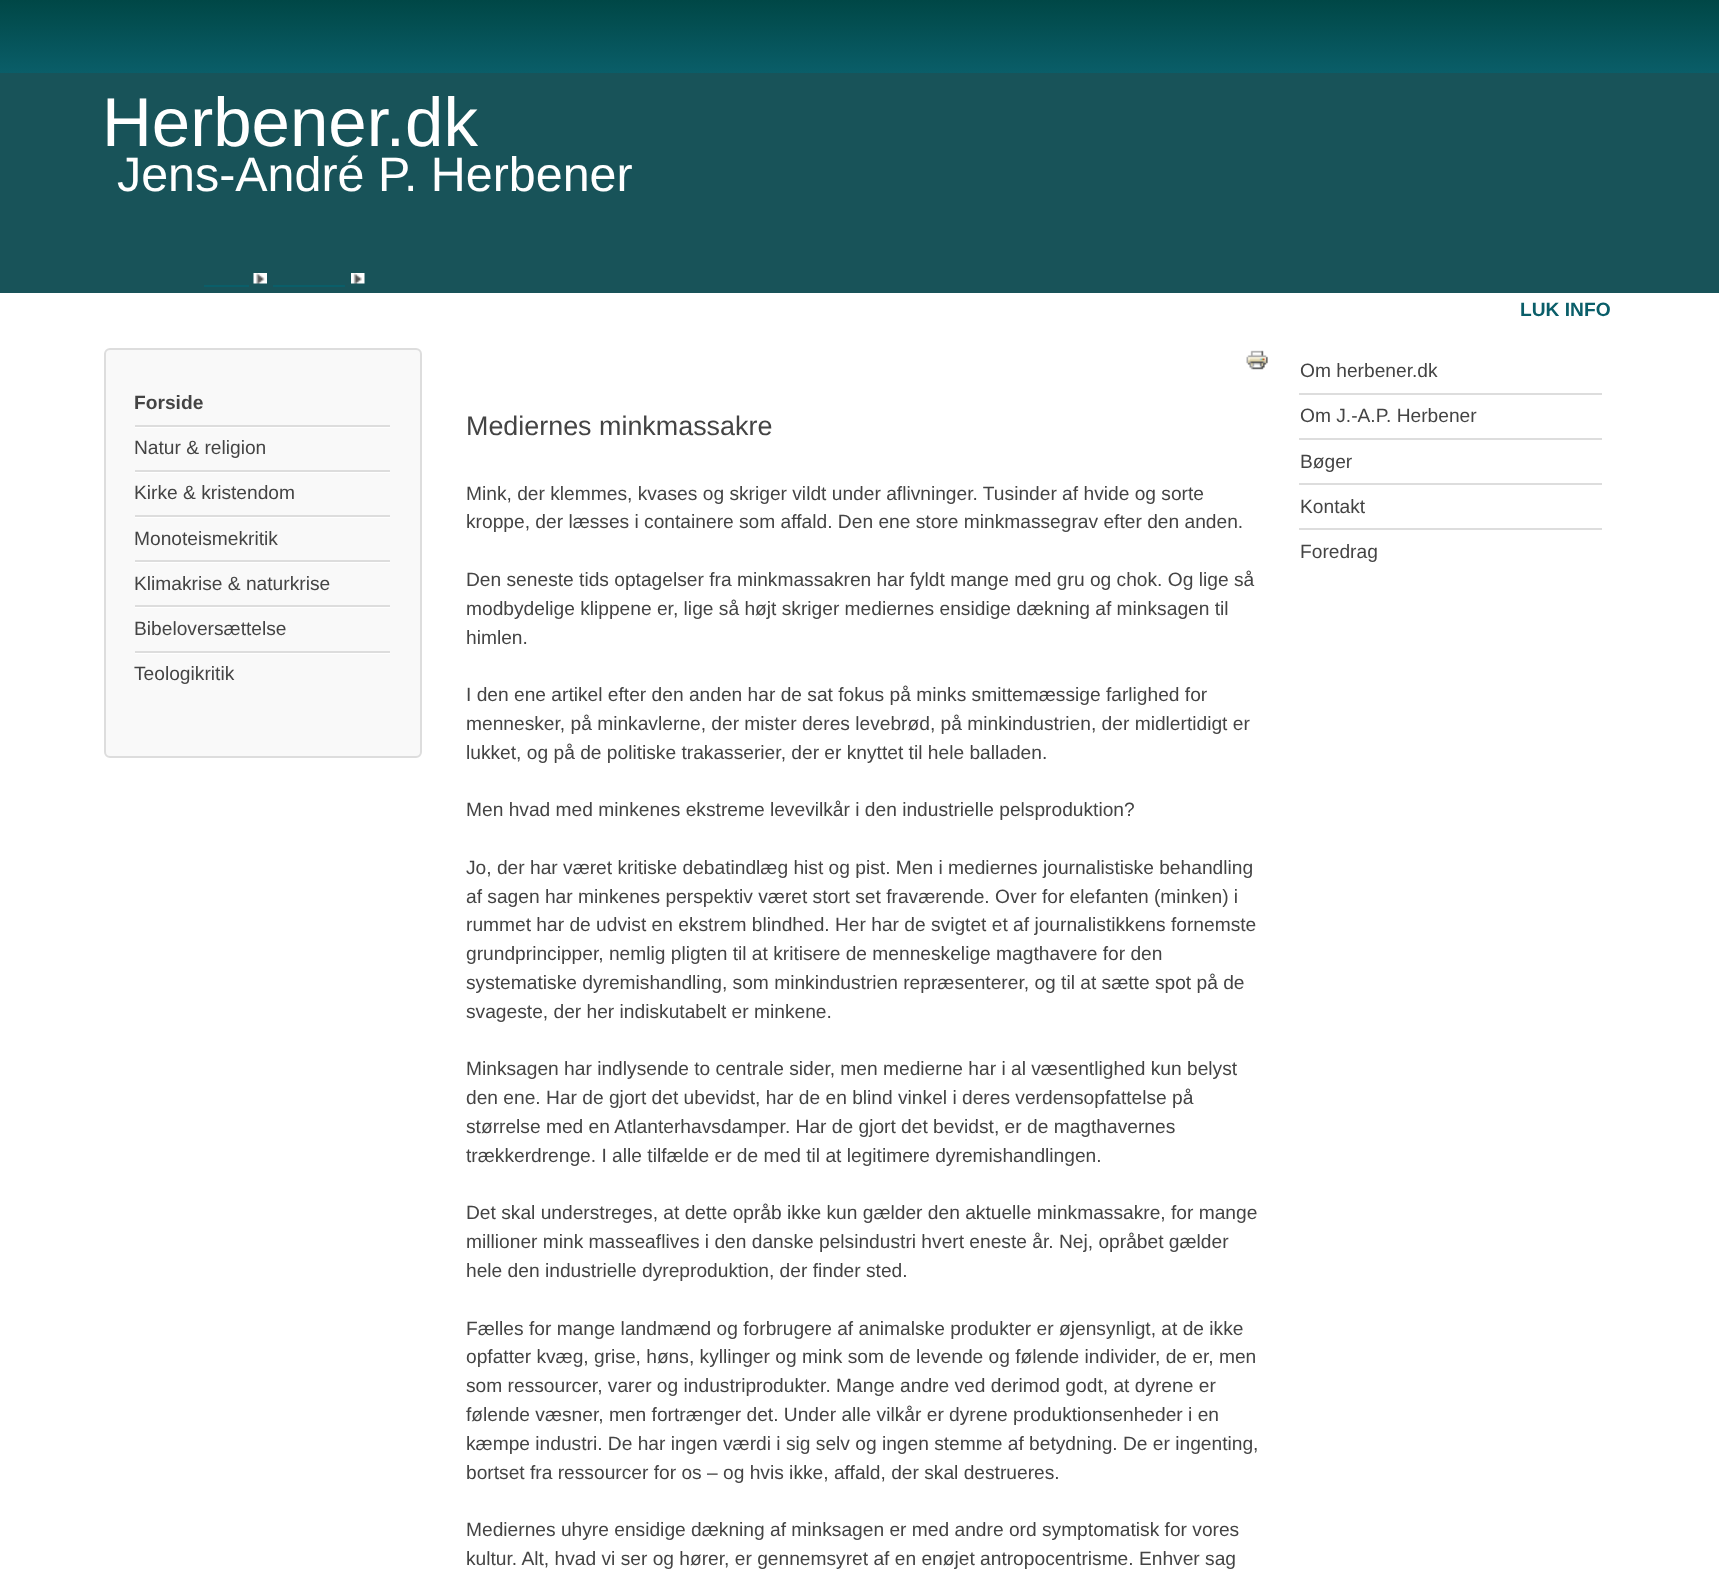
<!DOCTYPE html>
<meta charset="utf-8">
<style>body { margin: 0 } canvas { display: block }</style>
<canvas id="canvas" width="1720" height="1575"></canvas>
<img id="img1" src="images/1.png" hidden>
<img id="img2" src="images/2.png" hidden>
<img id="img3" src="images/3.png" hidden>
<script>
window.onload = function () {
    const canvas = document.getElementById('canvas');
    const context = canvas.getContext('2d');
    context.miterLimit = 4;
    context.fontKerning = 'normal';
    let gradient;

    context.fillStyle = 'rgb(255, 255, 255)';
    context.fillRect(0, 0, 1720, 1575);
    gradient = context.createLinearGradient(860, 0, 860, 293);
    gradient.addColorStop(0, 'rgb(0, 71, 70)');
    gradient.addColorStop(0.25, 'rgb(10, 94, 105)');
    gradient.addColorStop(0.25, 'rgb(24, 83, 89)');
    context.fillStyle = gradient;
    context.fillRect(0, 0, 1719, 293);
    context.drawImage(document.getElementById('img1'), 253, 273, 14, 11);
    context.drawImage(document.getElementById('img2'), 351, 273, 14, 11);
    context.fillStyle = 'rgb(10, 94, 105)';
    context.fillRect(204, 285, 45, 2);
    context.fillRect(273, 285, 72, 2);
    context.fillStyle = 'rgb(249, 249, 249)';
    context.beginPath();
    context.roundRect(105, 349, 316, 408, 5);
    context.fill();
    context.strokeStyle = 'rgb(221, 221, 221)';
    context.lineWidth = 2;
    context.stroke();
    context.fillStyle = 'rgb(255, 255, 255)';
    context.fillRect(135, 427, 255, 1);
    context.fillStyle = 'rgb(221, 221, 221)';
    context.fillRect(135, 425, 255, 2);
    context.fillStyle = 'rgb(255, 255, 255)';
    context.fillRect(135, 472, 255, 1);
    context.fillStyle = 'rgb(221, 221, 221)';
    context.fillRect(135, 470, 255, 2);
    context.fillStyle = 'rgb(255, 255, 255)';
    context.fillRect(135, 517, 255, 1);
    context.fillStyle = 'rgb(221, 221, 221)';
    context.fillRect(135, 515, 255, 2);
    context.fillStyle = 'rgb(255, 255, 255)';
    context.fillRect(135, 562, 255, 1);
    context.fillStyle = 'rgb(221, 221, 221)';
    context.fillRect(135, 560, 255, 2);
    context.fillStyle = 'rgb(255, 255, 255)';
    context.fillRect(135, 607, 255, 1);
    context.fillStyle = 'rgb(221, 221, 221)';
    context.fillRect(135, 605, 255, 2);
    context.fillStyle = 'rgb(255, 255, 255)';
    context.fillRect(135, 653, 255, 1);
    context.fillStyle = 'rgb(221, 221, 221)';
    context.fillRect(135, 651, 255, 2);
    context.drawImage(document.getElementById('img3'), 1246, 350, 22, 20);
    context.fillRect(1299, 393, 303, 2);
    context.fillRect(1299, 438, 303, 2);
    context.fillRect(1299, 483, 303, 2);
    context.fillRect(1299, 528, 303, 2);
    context.font = '69px Liberation Sans';
    context.fillStyle = 'rgb(255, 255, 255)';
    context.fillText('Herbener.dk', 102, 146);
    context.font = '48.4px Liberation Sans';
    context.fillText('Jens-André P. Herbener', 117, 191);
    context.font = 'bold 19.2px Liberation Sans';
    context.fillStyle = 'rgb(10, 94, 105)';
    context.fillText('LUK INFO', 1520, 316);
    context.fillStyle = 'rgb(68, 68, 68)';
    context.fillText('Forside', 134, 409);
    context.font = '19.2px Liberation Sans';
    context.fillText('Natur & religion', 134, 454);
    context.fillText('Kirke & kristendom', 134, 499);
    context.fillText('Monoteismekritik', 134, 545);
    context.fillText('Klimakrise & naturkrise', 134, 590);
    context.fillText('Bibeloversættelse', 134, 635);
    context.fillText('Teologikritik', 134, 680);
    context.font = '26.9px Liberation Sans';
    context.fillText('Mediernes minkmassakre', 466, 435);
    context.font = '19.2px Liberation Sans';
    context.fillText('Mink, der klemmes, kvases og skriger vildt under aflivninger. Tusinder af hvide og sorte', 466, 500);
    context.fillText('kroppe, der læsses i containere som affald. Den ene store minkmassegrav efter den anden.', 466, 528);
    context.fillText('Den seneste tids optagelser fra minkmassakren har fyldt mange med gru og chok. Og lige så', 466, 586);
    context.fillText('modbydelige klippene er, lige så højt skriger mediernes ensidige dækning af minksagen til', 466, 615);
    context.fillText('himlen.', 466, 644);
    context.fillText('I den ene artikel efter den anden har de sat fokus på minks smittemæssige farlighed for', 466, 701);
    context.fillText('mennesker, på minkavlerne, der mister deres levebrød, på minkindustrien, der midlertidigt er', 466, 730);
    context.fillText('lukket, og på de politiske trakasserier, der er knyttet til hele balladen.', 466, 759);
    context.fillText('Men hvad med minkenes ekstreme levevilkår i den industrielle pelsproduktion?', 466, 816);
    context.fillText('Jo, der har været kritiske debatindlæg hist og pist. Men i mediernes journalistiske behandling', 466, 874);
    context.fillText('af sagen har minkenes perspektiv været stort set fraværende. Over for elefanten (minken) i', 466, 903);
    context.fillText('rummet har de udvist en ekstrem blindhed. Her har de svigtet et af journalistikkens fornemste', 466, 931);
    context.fillText('grundprincipper, nemlig pligten til at kritisere de menneskelige magthavere for den', 466, 960);
    context.fillText('systematiske dyremishandling, som minkindustrien repræsenterer, og til at sætte spot på de', 466, 989);
    context.fillText('svageste, der her indiskutabelt er minkene.', 466, 1018);
    context.fillText('Minksagen har indlysende to centrale sider, men medierne har i al væsentlighed kun belyst', 466, 1075);
    context.fillText('den ene. Har de gjort det ubevidst, har de en blind vinkel i deres verdensopfattelse på', 466, 1104);
    context.fillText('størrelse med en Atlanterhavsdamper. Har de gjort det bevidst, er de magthavernes', 466, 1133);
    context.fillText('trækkerdrenge. I alle tilfælde er de med til at legitimere dyremishandlingen.', 466, 1162);
    context.fillText('Det skal understreges, at dette opråb ikke kun gælder den aktuelle minkmassakre, for mange', 466, 1219);
    context.fillText('millioner mink masseaflives i den danske pelsindustri hvert eneste år. Nej, opråbet gælder', 466, 1248);
    context.fillText('hele den industrielle dyreproduktion, der finder sted.', 466, 1277);
    context.fillText('Fælles for mange landmænd og forbrugere af animalske produkter er øjensynligt, at de ikke', 466, 1335);
    context.fillText('opfatter kvæg, grise, høns, kyllinger og mink som de levende og følende individer, de er, men', 466, 1363);
    context.fillText('som ressourcer, varer og industriprodukter. Mange andre ved derimod godt, at dyrene er', 466, 1392);
    context.fillText('følende væsner, men fortrænger det. Under alle vilkår er dyrene produktionsenheder i en', 466, 1421);
    context.fillText('kæmpe industri. De har ingen værdi i sig selv og ingen stemme af betydning. De er ingenting,', 466, 1450);
    context.fillText('bortset fra ressourcer for os – og hvis ikke, affald, der skal destrueres.', 466, 1479);
    context.fillText('Mediernes uhyre ensidige dækning af minksagen er med andre ord symptomatisk for vores', 466, 1536);
    context.fillText('kultur. Alt, hvad vi ser og hører, er gennemsyret af en enøjet antropocentrisme. Enhver sag', 466, 1565);
    context.fillText('Om herbener.dk', 1300, 377);
    context.fillText('Om J.-A.P. Herbener', 1300, 422);
    context.fillText('Bøger', 1300, 468);
    context.fillText('Kontakt', 1300, 513);
    context.fillText('Foredrag', 1300, 558);
};
</script>
